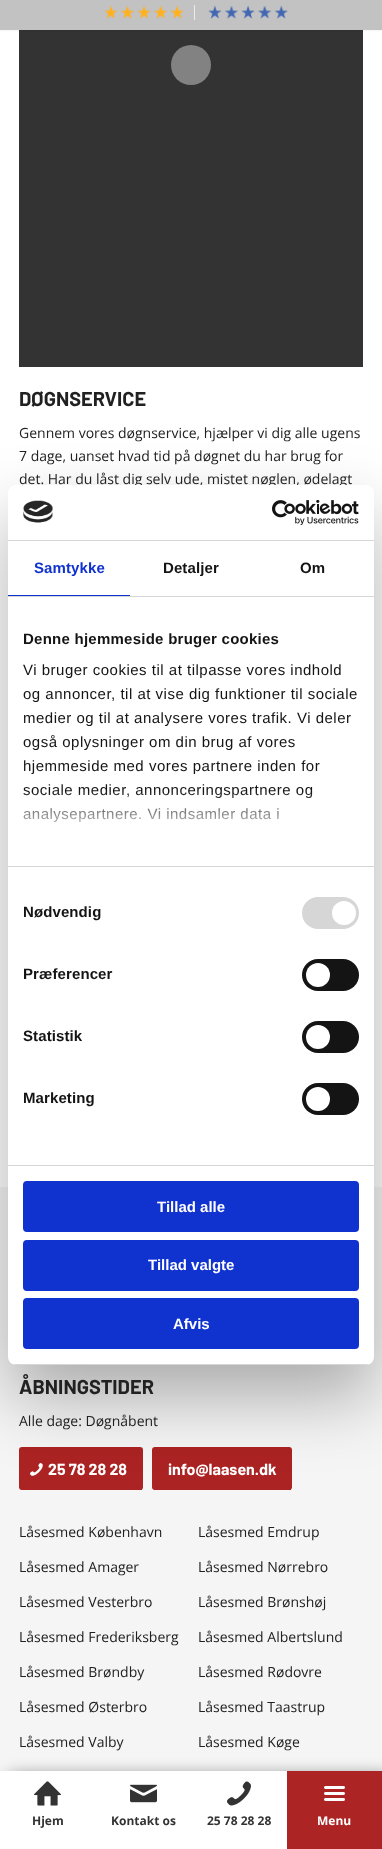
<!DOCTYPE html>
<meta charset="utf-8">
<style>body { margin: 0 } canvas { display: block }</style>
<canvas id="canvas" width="382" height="1849"></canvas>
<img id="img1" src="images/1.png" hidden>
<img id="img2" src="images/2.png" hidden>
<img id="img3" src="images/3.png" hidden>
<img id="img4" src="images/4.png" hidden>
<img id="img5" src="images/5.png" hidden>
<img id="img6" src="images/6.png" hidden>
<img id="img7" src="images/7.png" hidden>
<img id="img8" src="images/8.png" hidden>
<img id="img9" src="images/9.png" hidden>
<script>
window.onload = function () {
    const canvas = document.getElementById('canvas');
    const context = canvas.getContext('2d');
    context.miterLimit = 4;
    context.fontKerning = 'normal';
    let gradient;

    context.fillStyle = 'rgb(255, 255, 255)';
    context.fillRect(0, 0, 382, 1849);
    context.fillStyle = 'rgb(51, 51, 51)';
    context.fillRect(19, 30, 344, 337);
    context.fillStyle = 'rgba(0, 0, 0, 0.1)';
    context.filter = 'blur(1px)';
    context.beginPath();
    context.rect(-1, -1, 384, 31);
    context.fill();
    context.filter = 'none';
    context.fillStyle = 'rgb(194, 194, 194)';
    context.fillRect(0, 0, 382, 30);
    context.fillStyle = 'rgb(235, 235, 235)';
    context.fillRect(194, 5, 1, 15);
    context.drawImage(document.getElementById('img1'), 104, 5, 80, 14);
    context.drawImage(document.getElementById('img2'), 208, 5, 80, 14);
    context.fillStyle = 'rgb(130, 130, 130)';
    context.beginPath();
    context.arc(191, 65, 20, 0, 2 * Math.PI);
    context.fill();
    context.fillStyle = 'rgb(245, 245, 245)';
    context.fillRect(0, 1187, 382, 584);
    context.fillStyle = 'rgb(172, 35, 35)';
    context.beginPath();
    context.roundRect(19, 1447, 124, 43, 3);
    context.fill();
    context.fillRect(21, 1489, 121, 1);
    context.drawImage(document.getElementById('img3'), 30, 1463, 13, 13);
    context.beginPath();
    context.roundRect(152, 1447, 140, 43, 3);
    context.fill();
    context.fillRect(154, 1489, 137, 1);
    context.fillStyle = 'rgb(0, 0, 0)';
    context.filter = 'blur(10px)';
    context.beginPath();
    context.rect(10, 1781, 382, 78);
    context.fill();
    context.filter = 'none';
    context.fillStyle = 'rgb(255, 255, 255)';
    context.fillRect(0, 1771, 287, 78);
    context.drawImage(document.getElementById('img4'), 34, 1781, 27, 25);
    context.drawImage(document.getElementById('img5'), 130, 1784, 27, 19);
    context.drawImage(document.getElementById('img6'), 227, 1781, 24, 25);
    context.fillStyle = 'rgb(172, 36, 35)';
    context.fillRect(287, 1771, 95, 78);
    context.drawImage(document.getElementById('img7'), 324, 1786, 21, 15);
    context.fillStyle = 'rgba(0, 0, 0, 0.3)';
    context.filter = 'blur(34px)';
    context.beginPath();
    context.roundRect(8, 517, 366, 880, 8);
    context.fill();
    context.filter = 'none';
    context.font = 'bold 20px Barlow';
    context.fillStyle = 'rgb(33, 33, 33)';
    context.fillText('DØGNSERVICE', 19, 406);
    context.font = '14px Open Sans';
    context.fillText('Gennem vores døgnservice, hjælper vi dig alle ugens', 19, 438);
    context.fillText('7 dage, uanset hvad tid på døgnet du har brug for', 19, 461);
    context.fillText('det. Har du låst dig selv ude, mistet nøglen, ødelagt', 19, 484);
    context.font = 'bold 20px Barlow';
    context.fillText('ÅBNINGSTIDER', 19, 1394);
    context.font = '14px Open Sans';
    context.fillText('Alle dage: Døgnåbent', 19, 1426);
    context.font = 'bold 16px Barlow';
    context.fillStyle = 'rgb(255, 255, 255)';
    context.fillText('25 78 28 28', 48, 1475);
    context.fillText('info@laasen.dk', 168, 1475);
    context.font = '14px Open Sans';
    context.fillStyle = 'rgb(33, 33, 33)';
    context.fillText('Låsesmed København', 19, 1537);
    context.fillText('Låsesmed Emdrup', 198, 1537);
    context.fillText('Låsesmed Amager', 19, 1572);
    context.fillText('Låsesmed Nørrebro', 198, 1572);
    context.fillText('Låsesmed Vesterbro', 19, 1607);
    context.fillText('Låsesmed Brønshøj', 198, 1607);
    context.fillText('Låsesmed Frederiksberg', 19, 1642);
    context.fillText('Låsesmed Albertslund', 198, 1642);
    context.fillText('Låsesmed Brøndby', 19, 1677);
    context.fillText('Låsesmed Rødovre', 198, 1677);
    context.fillText('Låsesmed Østerbro', 19, 1712);
    context.fillText('Låsesmed Taastrup', 198, 1712);
    context.fillText('Låsesmed Valby', 19, 1747);
    context.fillText('Låsesmed Køge', 198, 1747);
    context.font = 'bold 12px Open Sans';
    context.fillStyle = 'rgb(51, 51, 51)';
    context.fillText('Hjem', 32, 1825);
    context.fillText('Kontakt os', 111, 1825);
    context.fillText('25 78 28 28', 207, 1825);
    context.fillStyle = 'rgb(255, 255, 255)';
    context.fillText('Menu', 317, 1825);
    context.beginPath();
    context.roundRect(8, 485, 366, 880, 8);
    context.fill();
    context.fillStyle = 'rgb(214, 214, 214)';
    context.fillRect(8, 540, 366, 1);
    context.drawImage(document.getElementById('img8'), 23, 500, 30, 23);
    context.drawImage(document.getElementById('img9'), 272, 500, 87, 25);
    context.fillRect(8, 596, 366, 1);
    context.fillStyle = 'rgb(16, 50, 207)';
    context.fillRect(8, 595, 122, 1);
    context.letterSpacing = '0.1px';
    context.font = 'bold 15px Liberation Sans';
    context.fillText('Samtykke', 34, 573);
    context.fillStyle = 'rgb(20, 20, 20)';
    context.fillText('Detaljer', 163, 573);
    context.fillText('Om', 300, 573);
    context.fillStyle = 'rgb(214, 214, 214)';
    context.fillRect(8, 866, 366, 1);
    context.letterSpacing = '0.25px';
    context.fillStyle = 'rgb(20, 20, 20)';
    context.fillText('Denne hjemmeside bruger cookies', 23, 644);
    context.letterSpacing = '0.5px';
    context.font = '15px Liberation Sans';
    context.fillText('Vi bruger cookies til at tilpasse vores indhold', 23, 675);
    context.fillText('og annoncer, til at vise dig funktioner til sociale', 23, 699);
    context.fillText('medier og til at analysere vores trafik. Vi deler', 23, 723);
    context.fillText('også oplysninger om din brug af vores', 23, 747);
    context.fillText('hjemmeside med vores partnere inden for', 23, 771);
    context.fillText('sociale medier, annonceringspartnere og', 23, 795);
    context.fillText('analysepartnere. Vi indsamler data i', 23, 819);
    gradient = context.createLinearGradient(185, 866, 185, 791);
    gradient.addColorStop(0, 'rgb(255, 255, 255)');
    gradient.addColorStop(0.5, 'rgba(255, 255, 255, 0.8)');
    gradient.addColorStop(1, 'rgba(255, 255, 255, 0)');
    context.fillStyle = gradient;
    context.fillRect(23, 792, 289, 31);
    context.fillStyle = 'rgb(214, 214, 214)';
    context.fillRect(8, 1165, 366, 1);
    context.letterSpacing = '0.1px';
    context.font = 'bold 15px Liberation Sans';
    context.fillStyle = 'rgb(20, 20, 20)';
    context.fillText('Nødvendig', 23, 917);
    context.fillStyle = 'rgb(214, 214, 214)';
    context.beginPath();
    context.roundRect(302, 897, 57, 32, 16);
    context.fill();
    context.fillStyle = 'rgb(255, 255, 255)';
    context.beginPath();
    context.arc(344, 913, 12, 0, 2 * Math.PI);
    context.fill();
    context.fillStyle = 'rgb(20, 20, 20)';
    context.fillText('Præferencer', 23, 979);
    context.beginPath();
    context.roundRect(302, 959, 57, 32, 16);
    context.fill();
    context.fillStyle = 'rgb(255, 255, 255)';
    context.beginPath();
    context.arc(318, 975, 12, 0, 2 * Math.PI);
    context.fill();
    context.fillStyle = 'rgb(20, 20, 20)';
    context.fillText('Statistik', 23, 1041);
    context.beginPath();
    context.roundRect(302, 1021, 57, 32, 16);
    context.fill();
    context.fillStyle = 'rgb(255, 255, 255)';
    context.beginPath();
    context.arc(318, 1037, 12, 0, 2 * Math.PI);
    context.fill();
    context.fillStyle = 'rgb(20, 20, 20)';
    context.fillText('Marketing', 23, 1103);
    context.beginPath();
    context.roundRect(302, 1083, 57, 32, 16);
    context.fill();
    context.fillStyle = 'rgb(255, 255, 255)';
    context.beginPath();
    context.arc(318, 1099, 12, 0, 2 * Math.PI);
    context.fill();
    context.save();
    context.beginPath();
    context.roundRect(8, 485, 366, 880, 8);
    context.clip();
    context.fillStyle = 'rgb(214, 214, 214)';
    context.fillRect(8, 1364, 366, 1);
    context.restore();
    context.fillStyle = 'rgb(16, 50, 207)';
    context.beginPath();
    context.roundRect(24, 1182, 334, 49, 3);
    context.fill();
    context.strokeStyle = 'rgb(16, 50, 207)';
    context.lineWidth = 2;
    context.stroke();
    context.letterSpacing = '0px';
    context.fillStyle = 'rgb(255, 255, 255)';
    context.fillText('Tillad alle', 157, 1212);
    context.fillStyle = 'rgb(16, 50, 207)';
    context.beginPath();
    context.roundRect(24, 1241, 334, 49, 3);
    context.fill();
    context.stroke();
    context.fillStyle = 'rgb(255, 255, 255)';
    context.fillText('Tillad valgte', 148, 1270);
    context.fillStyle = 'rgb(16, 50, 207)';
    context.beginPath();
    context.roundRect(24, 1299, 334, 49, 3);
    context.fill();
    context.stroke();
    context.fillStyle = 'rgb(255, 255, 255)';
    context.fillText('Afvis', 173, 1329);
};
</script>
